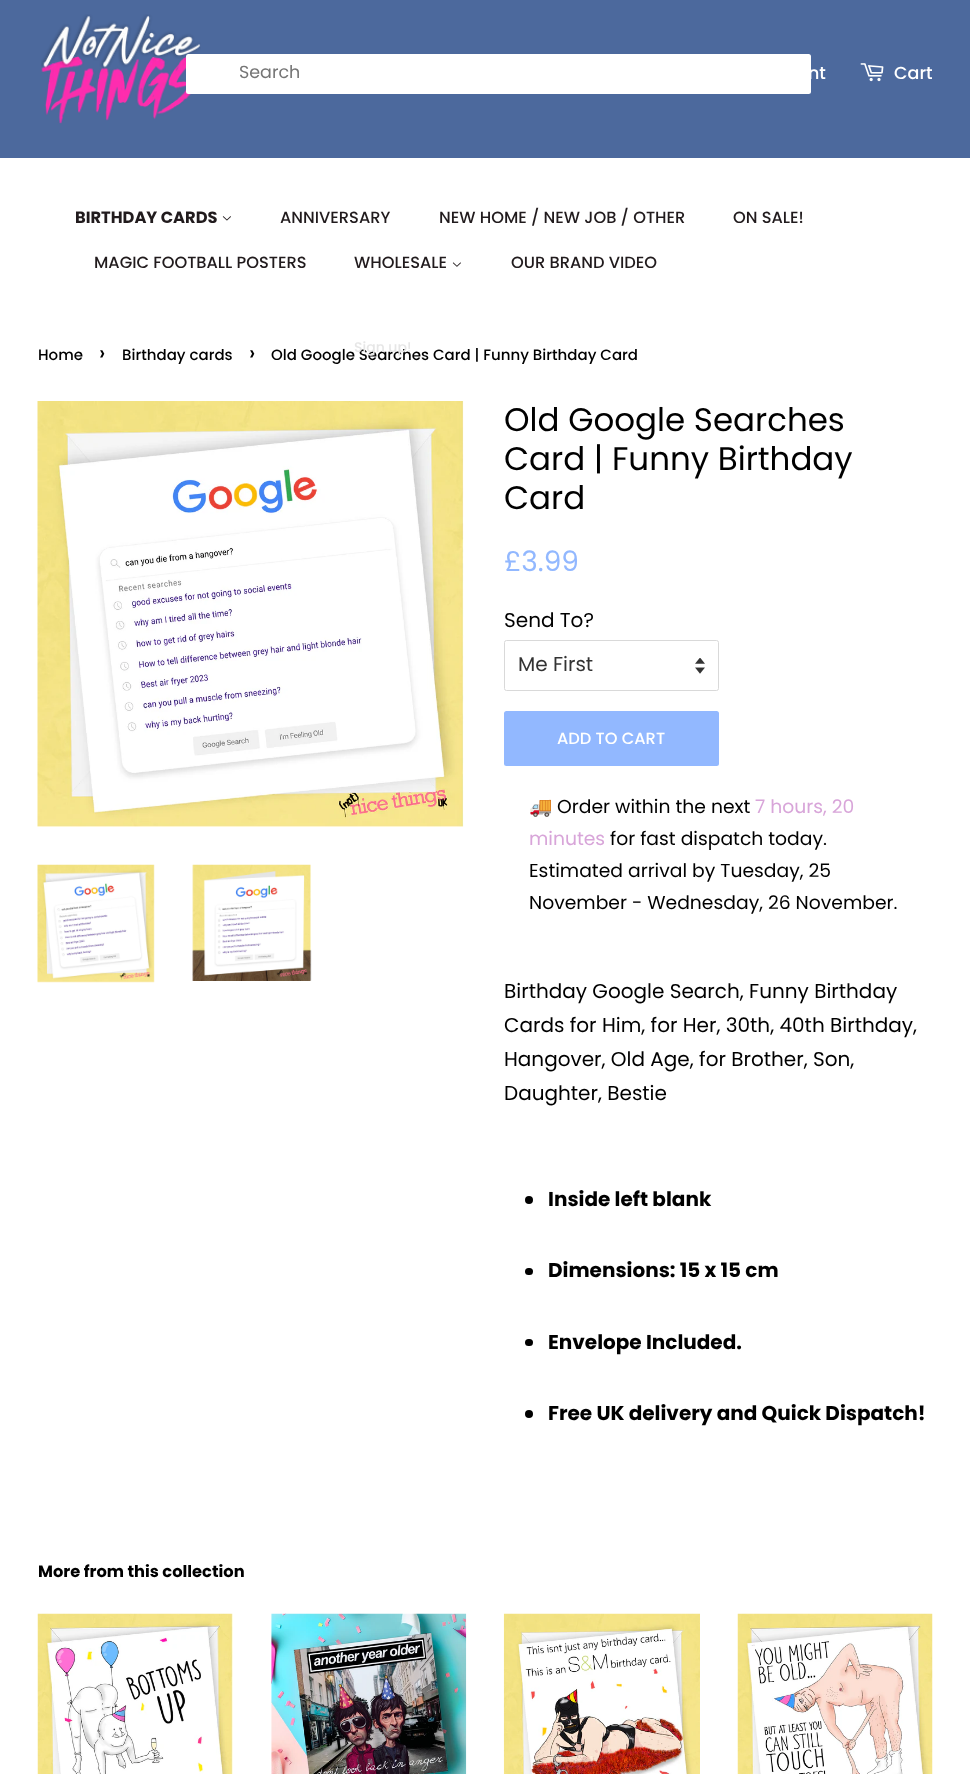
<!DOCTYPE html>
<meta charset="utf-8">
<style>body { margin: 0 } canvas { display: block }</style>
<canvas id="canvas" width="970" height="1774"></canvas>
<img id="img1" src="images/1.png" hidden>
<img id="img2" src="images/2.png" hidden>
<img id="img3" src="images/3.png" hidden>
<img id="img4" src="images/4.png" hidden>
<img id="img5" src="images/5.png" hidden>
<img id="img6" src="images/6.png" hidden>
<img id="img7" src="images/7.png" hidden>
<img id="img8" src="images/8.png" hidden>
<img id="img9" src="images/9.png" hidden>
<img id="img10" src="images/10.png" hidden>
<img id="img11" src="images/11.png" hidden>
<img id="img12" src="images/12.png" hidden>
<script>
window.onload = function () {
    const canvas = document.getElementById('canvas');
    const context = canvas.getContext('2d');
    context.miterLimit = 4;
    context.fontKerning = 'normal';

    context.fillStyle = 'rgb(255, 255, 255)';
    context.fillRect(0, 0, 970, 1774);
    context.fillStyle = 'rgb(76, 105, 157)';
    context.fillRect(0, 0, 970, 158);
    context.drawImage(document.getElementById('img1'), 41, 14, 160, 110);
    context.fillStyle = 'rgb(255, 255, 255)';
    context.beginPath();
    context.roundRect(186, 54, 625, 40, 2.5);
    context.fill();
    context.drawImage(document.getElementById('img2'), 860, 63, 24, 19);
    context.drawImage(document.getElementById('img3'), 222, 216, 9, 5);
    context.drawImage(document.getElementById('img4'), 452, 262, 9, 5);
    context.drawImage(document.getElementById('img5'), 37, 401, 427, 426);
    context.drawImage(document.getElementById('img6'), 37, 864, 118, 119);
    context.drawImage(document.getElementById('img7'), 192, 864, 120, 117);
    context.drawImage(document.getElementById('img8'), 695, 658, 10, 16);
    context.beginPath();
    context.roundRect(504.5, 640.5, 214, 50, 2);
    context.strokeStyle = 'rgb(217, 217, 217)';
    context.stroke();
    context.fillStyle = 'rgb(146, 184, 255)';
    context.beginPath();
    context.roundRect(504, 711, 215, 55, 2.5);
    context.fill();
    context.fillStyle = 'rgb(0, 0, 0)';
    context.beginPath();
    context.arc(529, 1200, 4, 0, 2 * Math.PI);
    context.fill();
    context.beginPath();
    context.roundRect(525, 1268, 8, 7, 3.5);
    context.fill();
    context.beginPath();
    context.roundRect(525, 1339, 8, 7, 3.5);
    context.fill();
    context.beginPath();
    context.arc(529, 1414, 4, 0, 2 * Math.PI);
    context.fill();
    context.drawImage(document.getElementById('img9'), 37, 1613, 196, 161);
    context.drawImage(document.getElementById('img10'), 271, 1613, 196, 161);
    context.drawImage(document.getElementById('img11'), 503, 1613, 197, 161);
    context.drawImage(document.getElementById('img12'), 737, 1613, 196, 161);
    context.font = '17.5px Poppins';
    context.fillStyle = 'rgb(117, 117, 117)';
    context.fillText('Search', 239, 78);
    context.font = '500 17.5px Poppins';
    context.fillStyle = 'rgb(255, 255, 255)';
    context.fillText('nt', 808, 79);
    context.fillText('Cart', 894, 79);
    context.font = 'bold 16.25px Poppins';
    context.fillStyle = 'rgb(33, 27, 29)';
    context.fillText('BIRTHDAY CARDS', 75, 223);
    context.font = '500 16.25px Poppins';
    context.fillText('ANNIVERSARY', 280, 223);
    context.fillText('NEW HOME / NEW JOB / OTHER', 439, 223);
    context.fillText('ON SALE!', 733, 223);
    context.fillText('MAGIC FOOTBALL POSTERS', 94, 268);
    context.fillText('WHOLESALE', 354, 268);
    context.fillText('OUR BRAND VIDEO', 511, 268);
    context.font = '500 15px Poppins';
    context.fillStyle = 'rgb(0, 0, 0)';
    context.fillText('Home', 38, 360);
    context.font = '500 21px Poppins';
    context.fillText('›', 99, 360);
    context.font = '500 15px Poppins';
    context.fillText('Birthday cards', 122, 360);
    context.font = '500 21px Poppins';
    context.fillText('›', 249, 360);
    context.font = '500 15px Poppins';
    context.fillText('Old Google Searches Card | Funny Birthday Card', 271, 360);
    context.font = '500 14px Poppins';
    context.fillStyle = 'rgb(230, 230, 230)';
    context.fillText('Sign up!', 354, 352);
    context.font = '32.5px Poppins';
    context.fillStyle = 'rgb(0, 0, 0)';
    context.fillText('Old Google Searches', 504, 431);
    context.fillText('Card | Funny Birthday', 504, 470);
    context.fillText('Card', 504, 509);
    context.font = '28px Poppins';
    context.fillStyle = 'rgb(146, 184, 255)';
    context.fillText('£3.99', 504, 571);
    context.font = '20px Poppins';
    context.fillStyle = 'rgb(0, 0, 0)';
    context.fillText('Send To?', 504, 627);
    context.fillStyle = 'rgb(51, 51, 51)';
    context.fillText('Me First', 518, 671);
    context.font = '500 16.25px Poppins';
    context.fillStyle = 'rgb(255, 255, 255)';
    context.fillText('ADD TO CART', 557, 744);
    context.font = '18.75px Noto Color Emoji';
    context.fillStyle = 'rgb(0, 0, 0)';
    context.fillText('🚚', 529, 813);
    context.font = '18.75px Poppins';
    context.fillText('Order within the next', 557, 813);
    context.fillStyle = 'rgb(216, 165, 217)';
    context.fillText('7 hours, 20', 755, 813);
    context.fillText('minutes', 529, 845);
    context.fillStyle = 'rgb(0, 0, 0)';
    context.fillText('for fast dispatch today.', 610, 845);
    context.fillText('Estimated arrival by Tuesday, 25', 529, 877);
    context.fillText('November - Wednesday, 26 November.', 529, 909);
    context.font = '20px Poppins';
    context.fillText('Birthday Google Search, Funny Birthday', 504, 998);
    context.fillText('Cards for Him, for Her, 30th, 40th Birthday,', 504, 1032);
    context.fillText('Hangover, Old Age, for Brother, Son,', 504, 1066);
    context.fillText('Daughter, Bestie', 504, 1100);
    context.font = 'bold 20px Poppins';
    context.fillText('Inside left blank', 548, 1206);
    context.fillText('Dimensions: 15 x 15 cm', 548, 1277);
    context.fillText('Envelope Included.', 548, 1349);
    context.fillText('Free UK delivery and Quick Dispatch!', 548, 1420);
    context.font = 'bold 16.25px Poppins';
    context.fillText('More from this collection', 38, 1577);
};
</script>
